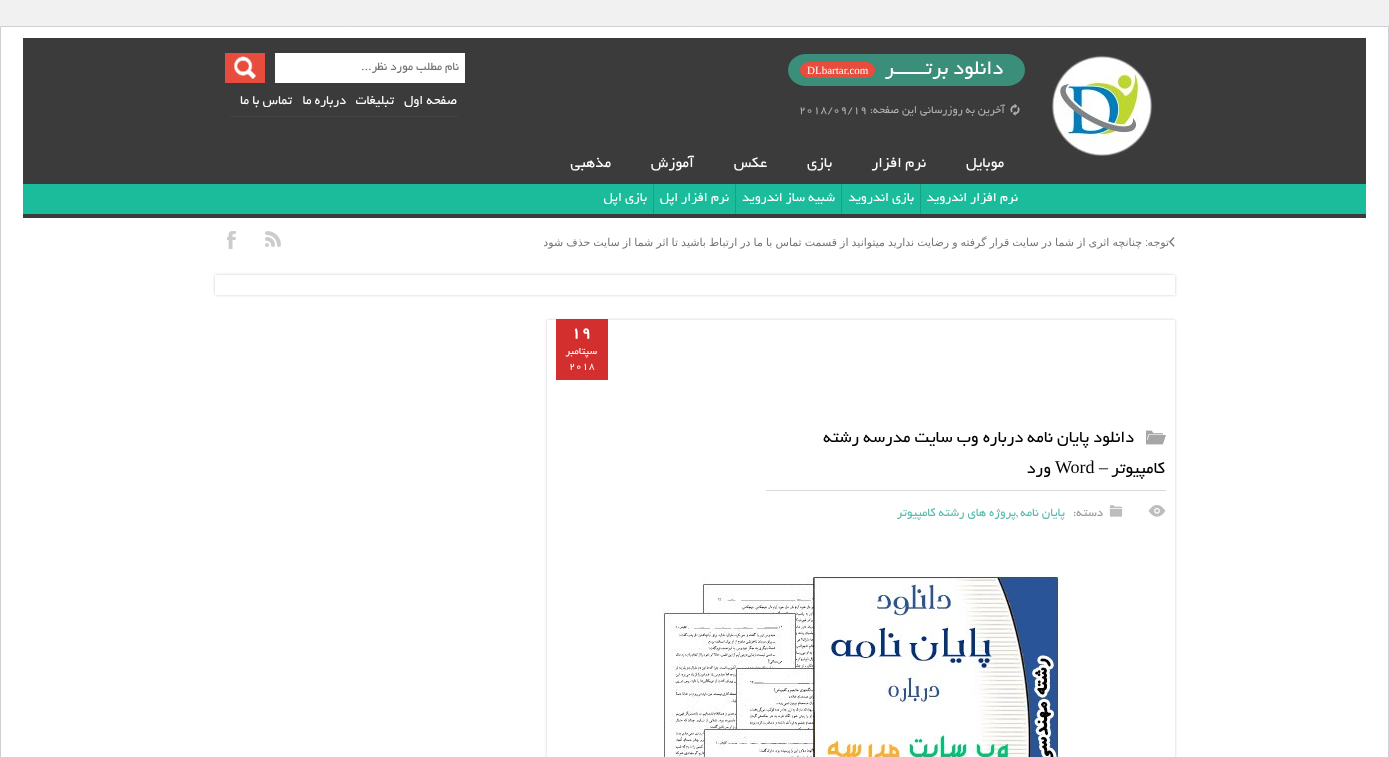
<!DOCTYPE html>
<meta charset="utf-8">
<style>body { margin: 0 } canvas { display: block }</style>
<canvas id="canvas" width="1389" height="757"></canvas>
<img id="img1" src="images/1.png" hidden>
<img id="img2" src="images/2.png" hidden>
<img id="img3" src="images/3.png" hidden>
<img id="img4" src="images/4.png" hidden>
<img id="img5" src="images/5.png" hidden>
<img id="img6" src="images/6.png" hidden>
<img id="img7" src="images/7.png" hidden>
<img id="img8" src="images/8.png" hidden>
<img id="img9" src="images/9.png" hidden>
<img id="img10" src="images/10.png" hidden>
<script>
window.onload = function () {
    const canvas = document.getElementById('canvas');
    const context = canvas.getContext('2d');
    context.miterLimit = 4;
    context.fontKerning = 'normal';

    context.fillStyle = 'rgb(241, 241, 241)';
    context.fillRect(0, 0, 1389, 757);
    context.fillStyle = 'rgb(255, 255, 255)';
    context.beginPath();
    context.rect(0.5, 26.5, 1388, 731);
    context.fill();
    context.strokeStyle = 'rgb(204, 208, 212)';
    context.stroke();
    context.fillStyle = 'rgb(59, 59, 59)';
    context.fillRect(23, 38, 1343, 180);
    context.fillStyle = 'rgb(26, 188, 156)';
    context.fillRect(23, 184, 1343, 30);
    context.drawImage(document.getElementById('img1'), 1051, 53, 103, 103);
    context.fillStyle = 'rgb(59, 142, 122)';
    context.beginPath();
    context.moveTo(806, 54);
    context.lineTo(1007, 54);
    context.bezierCurveTo(1017, 54, 1025, 61, 1025, 70);
    context.bezierCurveTo(1025, 79, 1017, 86, 1007, 86);
    context.lineTo(806, 86);
    context.bezierCurveTo(796, 86, 788, 79, 788, 70);
    context.bezierCurveTo(788, 61, 796, 54, 806, 54);
    context.closePath();
    context.fill();
    context.fillStyle = 'rgb(231, 76, 60)';
    context.beginPath();
    context.moveTo(809, 62);
    context.lineTo(866, 62);
    context.bezierCurveTo(871, 62, 875, 66, 875, 70);
    context.bezierCurveTo(875, 74, 871, 78, 866, 78);
    context.lineTo(809, 78);
    context.bezierCurveTo(804, 78, 800, 74, 800, 70);
    context.bezierCurveTo(800, 66, 804, 62, 809, 62);
    context.closePath();
    context.fill();
    context.drawImage(document.getElementById('img2'), 1010, 103, 10, 13);
    context.fillStyle = 'rgb(22, 160, 133)';
    context.fillRect(920, 184, 1, 30);
    context.fillRect(841, 184, 1, 30);
    context.fillRect(735, 184, 1, 30);
    context.fillRect(653, 184, 1, 30);
    context.fillStyle = 'rgb(255, 255, 255)';
    context.fillRect(275, 53, 190, 30);
    context.drawImage(document.getElementById('img3'), 225, 53, 40, 30);
    context.fillStyle = 'rgb(68, 68, 68)';
    context.fillRect(230, 116, 228, 1);
    context.drawImage(document.getElementById('img4'), 1169, 237, 6, 10);
    context.drawImage(document.getElementById('img5'), 265, 231, 16, 16);
    context.drawImage(document.getElementById('img6'), 227, 231, 9, 18);
    context.save();
    context.beginPath();
    context.moveTo(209, 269);
    context.lineTo(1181, 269);
    context.lineTo(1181, 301);
    context.lineTo(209, 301);
    context.closePath();
    context.moveTo(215, 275);
    context.lineTo(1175, 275);
    context.lineTo(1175, 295);
    context.lineTo(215, 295);
    context.closePath();
    context.clip('evenodd');
    context.fillStyle = 'rgba(0, 0, 0, 0.2)';
    context.filter = 'blur(1.5px)';
    context.beginPath();
    context.rect(215, 275, 960, 20);
    context.fill();
    context.filter = 'none';
    context.restore();
    context.save();
    context.beginPath();
    context.moveTo(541, 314);
    context.lineTo(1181, 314);
    context.lineTo(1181, 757);
    context.lineTo(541, 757);
    context.closePath();
    context.moveTo(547, 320);
    context.lineTo(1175, 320);
    context.lineTo(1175, 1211);
    context.lineTo(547, 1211);
    context.closePath();
    context.clip('evenodd');
    context.fillStyle = 'rgba(0, 0, 0, 0.2)';
    context.filter = 'blur(1.5px)';
    context.beginPath();
    context.rect(547, 320, 628, 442);
    context.fill();
    context.filter = 'none';
    context.restore();
    context.fillStyle = 'rgb(211, 47, 46)';
    context.fillRect(556, 319, 52, 61);
    context.fillStyle = 'rgb(218, 218, 218)';
    context.fillRect(766, 490, 400, 1);
    context.drawImage(document.getElementById('img7'), 1146, 430, 20, 15);
    context.drawImage(document.getElementById('img8'), 1148, 505, 18, 12);
    context.drawImage(document.getElementById('img9'), 1109, 505, 14, 12);
    context.drawImage(document.getElementById('img10'), 662, 576, 398, 181);
    context.direction = 'rtl';
    context.font = '22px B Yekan';
    context.fillStyle = 'rgb(255, 255, 255)';
    context.fillText('دانلود برتــــــر', 1003, 74);
    context.direction = 'ltr';
    context.font = '11px Liberation Serif';
    context.fillText('DLbartar.com', 807, 74);
    context.direction = 'rtl';
    context.font = '12px B Yekan';
    context.fillStyle = 'rgb(176, 176, 176)';
    context.fillText('آخرین به روزرسانی این صفحه:', 1005, 113);
    context.direction = 'ltr';
    context.fillText('2018/09/19', 799, 113);
    context.direction = 'rtl';
    context.font = '16px B Yekan';
    context.fillStyle = 'rgb(255, 255, 255)';
    context.fillText('نرم افزار', 926, 167);
    context.fillText('بازی', 832, 167);
    context.fillText('عکس', 767, 167);
    context.fillText('آموزش', 694, 167);
    context.fillText('مذهبی', 611, 167);
    context.fillText('موبایل', 1004, 167);
    context.font = '14px B Yekan';
    context.fillText('نرم افزار اندروید', 1018, 201);
    context.fillText('بازی اندروید', 914, 201);
    context.fillText('شبیه ساز اندروید', 835, 201);
    context.fillText('نرم افزار اپل', 729, 201);
    context.fillText('بازی اپل', 647, 201);
    context.font = '13px B Yekan';
    context.fillStyle = 'rgb(117, 117, 117)';
    context.fillText('نام مطلب مورد نظر...', 459, 70);
    context.font = '14px B Yekan';
    context.fillStyle = 'rgb(255, 255, 255)';
    context.fillText('صفحه اول', 457, 104);
    context.fillText('تبلیغات', 394, 104);
    context.fillText('درباره ما', 346, 104);
    context.fillText('تماس با ما', 292, 104);
    context.font = '11px DejaVu Sans';
    context.fillStyle = 'rgb(117, 117, 117)';
    context.fillText('توجه', 1169, 246);
    context.font = '11px Liberation Sans';
    context.fillText(':', 1148, 246);
    context.wordSpacing = '-0.4px';
    context.font = '11px DejaVu Sans';
    context.fillText('چنانچه اثری از شما در سایت قرار گرفته و رضایت ندارید میتوانید از قسمت تماس با ما در ارتباط باشید تا اثر شما از سایت حذف شود', 1142, 246);
    context.wordSpacing = '0px';
    context.direction = 'ltr';
    context.font = 'bold 17px B Yekan';
    context.fillStyle = 'rgb(255, 255, 255)';
    context.fillText('19', 571, 337);
    context.direction = 'rtl';
    context.font = '11px B Yekan';
    context.fillText('سپتامبر', 597, 354);
    context.direction = 'ltr';
    context.fillText('2018', 569, 369);
    context.direction = 'rtl';
    context.font = '18px B Yekan';
    context.fillStyle = 'rgb(0, 0, 0)';
    context.fillText('دانلود پایان نامه درباره وب سایت مدرسه رشته', 1134, 442);
    context.fillText('کامپیوتر', 1165, 473);
    context.font = '18px Liberation Serif';
    context.fillText('–', 1108, 473);
    context.direction = 'ltr';
    context.fillText('Word', 1055, 473);
    context.direction = 'rtl';
    context.font = '18px B Yekan';
    context.fillText('ورد', 1051, 473);
    context.font = '13px B Yekan';
    context.fillStyle = 'rgb(153, 153, 153)';
    context.fillText('دسته:', 1103, 516);
    context.fillStyle = 'rgb(90, 187, 172)';
    context.fillText('پایان نامه', 1065, 516);
    context.direction = 'ltr';
    context.fillStyle = 'rgb(153, 153, 153)';
    context.fillText(',', 1016, 516);
    context.direction = 'rtl';
    context.fillStyle = 'rgb(90, 187, 172)';
    context.fillText('پروژه های رشته کامپیوتر', 1016, 516);
};
</script>
